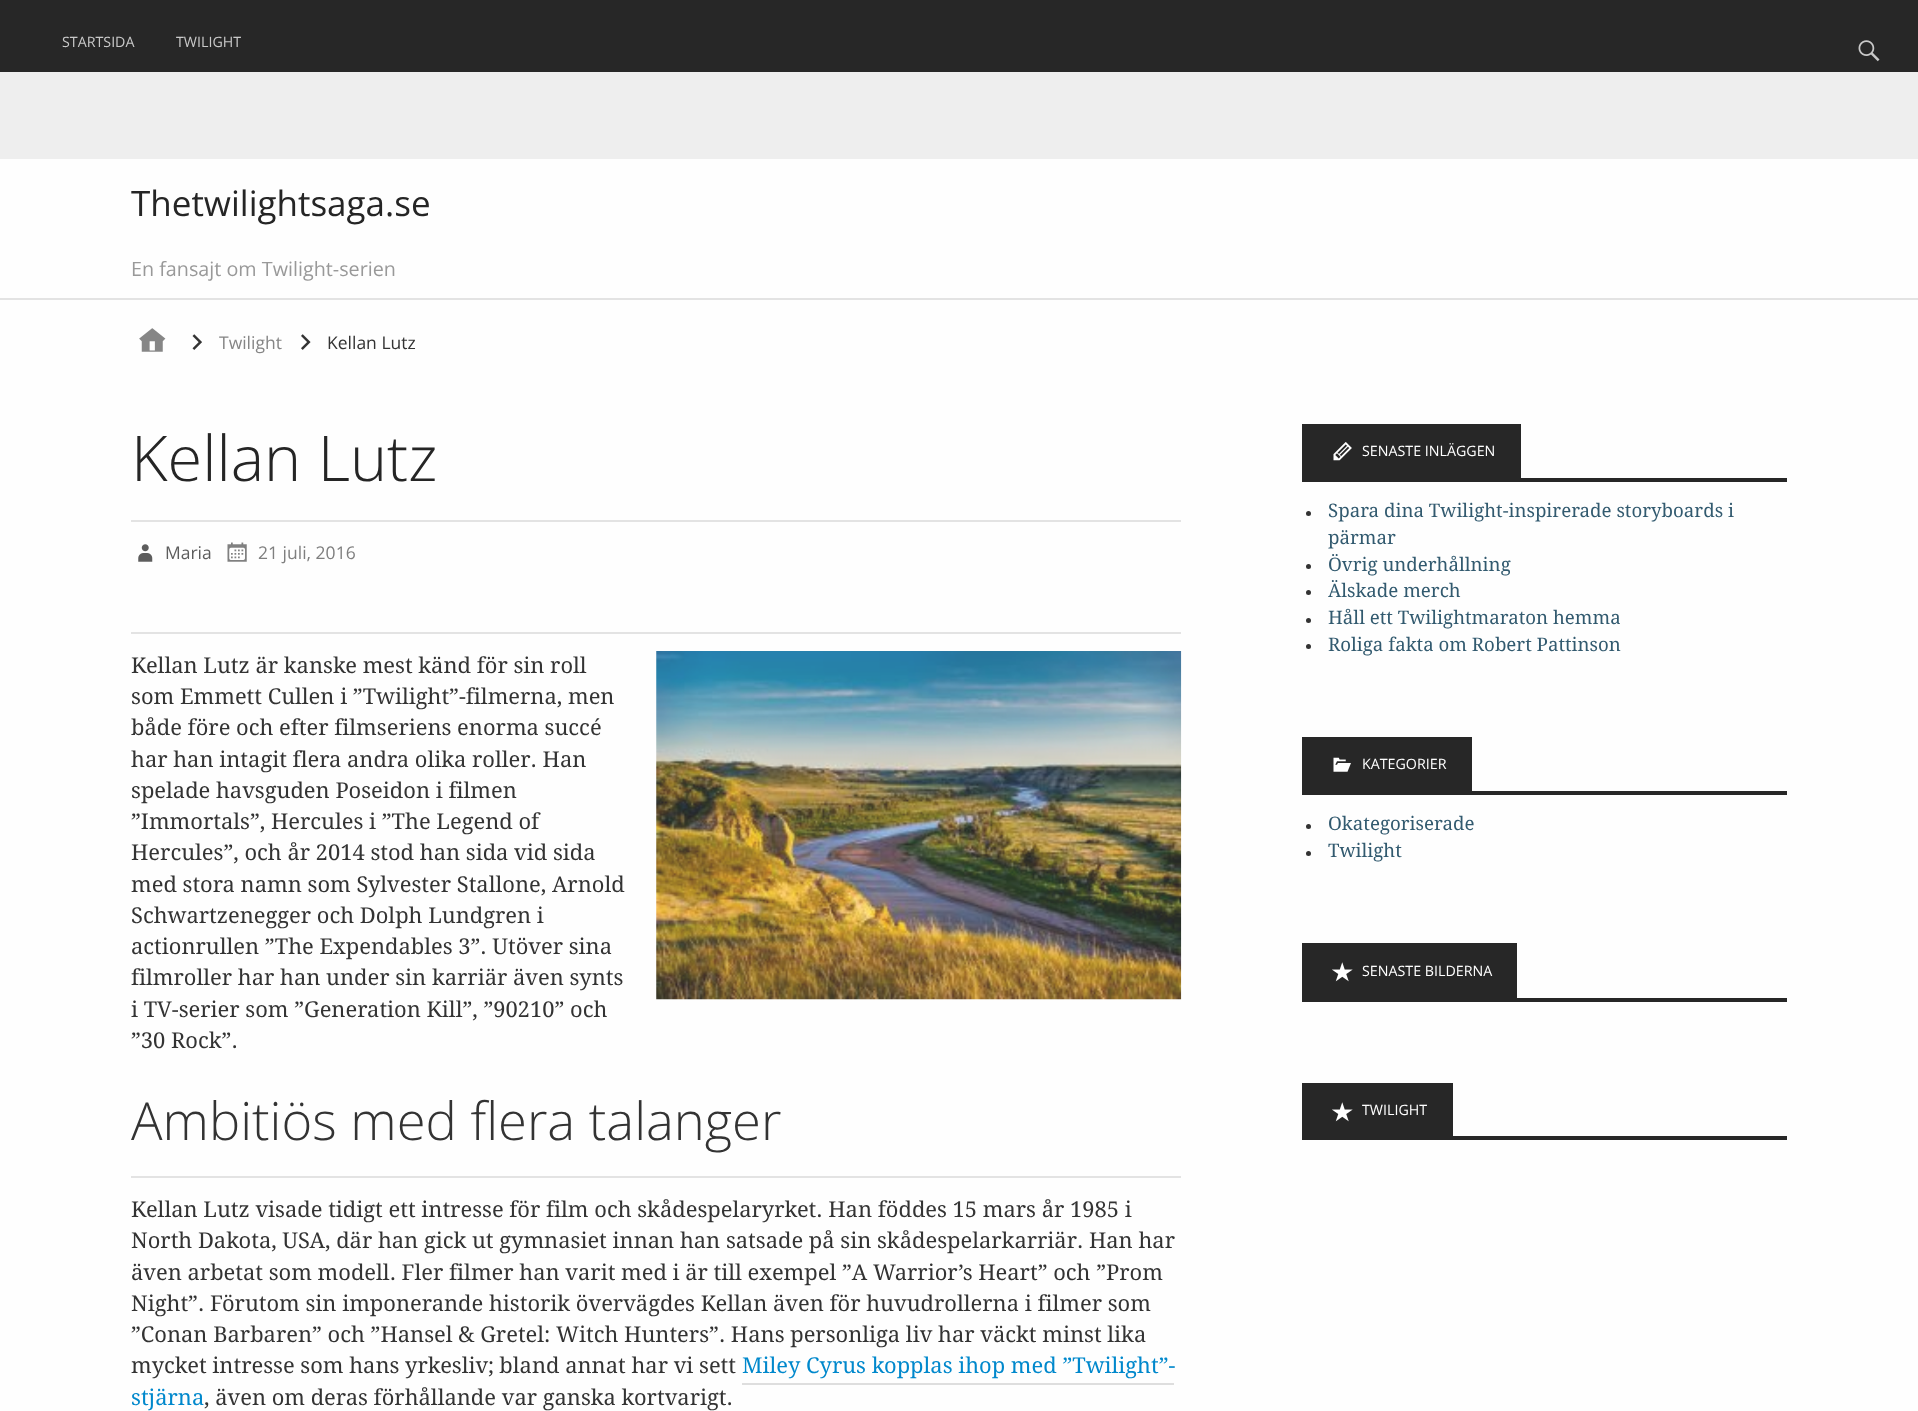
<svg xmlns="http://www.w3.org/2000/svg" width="1918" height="1411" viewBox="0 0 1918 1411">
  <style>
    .t1 { font: 14.25px Open Sans; fill: #c9c9c9; }
    .t2 { font: 35px Open Sans; fill: #252525; }
    .t3 { font: 19.75px Open Sans; fill: #999; }
    .t4 { font: 17.5px Open Sans; fill: #858585; }
    .t5 { font: 17.5px Open Sans; fill: #333; }
    .t6 { font: 300 63px Open Sans; fill: #252525; }
    .t7 { font: 17.5px Open Sans; fill: #5d5d5d; }
    .t8 { font: 17.5px Open Sans; fill: #7f7f7f; }
    .t9 { font: 21.9px Droid Serif; fill: #333; }
    .t10 { font: 300 52.5px Open Sans; fill: #333; }
    .t11 { font: 21.9px Droid Serif; fill: #08c; }
    .t12 { font: 14.25px Open Sans; fill: #fff; }
    .t13 { font: 18.7px Droid Serif; fill: #325a6f; }
  </style>
  <rect width="100%" height="100%" fill="#eee"/>
  <rect x="0" y="0" width="1918" height="72" fill="#272727"/>
  <text x="62" y="47" class="t1">STARTSIDA</text>
  <text x="176" y="47" class="t1">TWILIGHT</text>
  <image x="1858" y="40" width="22" height="22" href="images/1.png"/>
  <rect x="0" y="159" width="1918" height="1252" fill="#fefefe"/>
  <rect x="0" y="298" width="1918" height="2" fill="#e3e3e3"/>
  <text x="131" y="216" class="t2">Thetwilightsaga.se</text>
  <text x="131" y="276" class="t3">En fansajt om Twilight-serien</text>
  <image x="139" y="328" width="27" height="24" href="images/2.png"/>
  <image x="192" y="334" width="10" height="16" href="images/3.png"/>
  <text x="219" y="349" class="t4">Twilight</text>
  <image x="301" y="334" width="10" height="16" href="images/4.png"/>
  <text x="327" y="349" class="t5">Kellan Lutz</text>
  <rect x="131" y="520" width="1050" height="2" fill="#e3e3e3"/>
  <text x="131" y="481" class="t6">Kellan Lutz</text>
  <image x="138" y="544" width="15" height="18" href="images/5.png"/>
  <text x="165" y="559" class="t7">Maria</text>
  <image x="227" y="542" width="20" height="20" href="images/6.png"/>
  <text x="258" y="559" class="t8">21 juli, 2016</text>
  <rect x="131" y="632" width="1050" height="2" fill="#e3e3e3"/>
  <text x="131" y="673" class="t9">Kellan Lutz är kanske mest känd för sin roll</text>
  <text x="131" y="704" class="t9">som Emmett Cullen i ”Twilight”-filmerna, men</text>
  <text x="131" y="735" class="t9">både före och efter filmseriens enorma succé</text>
  <text x="131" y="767" class="t9">har han intagit flera andra olika roller. Han</text>
  <text x="131" y="798" class="t9">spelade havsguden Poseidon i filmen</text>
  <text x="131" y="829" class="t9">”Immortals”, Hercules i ”The Legend of</text>
  <text x="131" y="860" class="t9">Hercules”, och år 2014 stod han sida vid sida</text>
  <text x="131" y="892" class="t9">med stora namn som Sylvester Stallone, Arnold</text>
  <text x="131" y="923" class="t9">Schwartzenegger och Dolph Lundgren i</text>
  <text x="131" y="954" class="t9">actionrullen ”The Expendables 3”. Utöver sina</text>
  <text x="131" y="985" class="t9">filmroller har han under sin karriär även synts</text>
  <text x="131" y="1017" class="t9">i TV-serier som ”Generation Kill”, ”90210” och</text>
  <text x="131" y="1048" class="t9">”30 Rock”.</text>
  <image x="656" y="651" width="526" height="349" href="images/7.png"/>
  <rect x="131" y="1176" width="1050" height="2" fill="#e3e3e3"/>
  <text x="131" y="1140" class="t10">Ambitiös med flera talanger</text>
  <text x="131" y="1217" class="t9">Kellan Lutz visade tidigt ett intresse för film och skådespelaryrket. Han föddes 15 mars år 1985 i</text>
  <text x="131" y="1248" class="t9">North Dakota, USA, där han gick ut gymnasiet innan han satsade på sin skådespelarkarriär. Han har</text>
  <text x="131" y="1280" class="t9">även arbetat som modell. Fler filmer han varit med i är till exempel ”A Warrior’s Heart” och ”Prom</text>
  <text x="131" y="1311" class="t9">Night”. Förutom sin imponerande historik övervägdes Kellan även för huvudrollerna i filmer som</text>
  <text x="131" y="1342" class="t9">”Conan Barbaren” och ”Hansel &amp; Gretel: Witch Hunters”. Hans personliga liv har väckt minst lika</text>
  <text x="131" y="1373" class="t9">mycket intresse som hans yrkesliv; bland annat har vi sett</text>
  <text x="742" y="1373" class="t11">Miley Cyrus kopplas ihop med ”Twilight”-</text>
  <rect x="742" y="1383" width="432" height="2" fill="#dedede"/>
  <text x="131" y="1405" class="t11">stjärna</text>
  <text x="204" y="1405" class="t9">, även om deras förhållande var ganska kortvarigt.</text>
  <rect x="1302" y="478" width="485" height="4" fill="#272727"/>
  <rect x="1302" y="424" width="219" height="54" fill="#272727"/>
  <image x="1333" y="442" width="19" height="19" href="images/8.png"/>
  <text x="1362" y="456" class="t12">SENASTE INLÄGGEN</text>
  <circle cx="1308.5" cy="513.5" r="2.5" fill="#333"/>
  <text x="1328" y="517" class="t13">Spara dina Twilight-inspirerade storyboards i</text>
  <text x="1328" y="544" class="t13">pärmar</text>
  <circle cx="1308.5" cy="566.5" r="2.5" fill="#333"/>
  <text x="1328" y="571" class="t13">Övrig underhållning</text>
  <circle cx="1308.5" cy="592.5" r="2.5" fill="#333"/>
  <text x="1328" y="597" class="t13">Älskade merch</text>
  <circle cx="1308.5" cy="620.5" r="2.5" fill="#333"/>
  <text x="1328" y="624" class="t13">Håll ett Twilightmaraton hemma</text>
  <circle cx="1308.5" cy="646.5" r="2.5" fill="#333"/>
  <text x="1328" y="651" class="t13">Roliga fakta om Robert Pattinson</text>
  <rect x="1302" y="791" width="485" height="4" fill="#272727"/>
  <rect x="1302" y="737" width="170" height="54" fill="#272727"/>
  <image x="1333" y="757" width="18" height="15" href="images/9.png"/>
  <text x="1362" y="769" class="t12">KATEGORIER</text>
  <circle cx="1308.5" cy="826.5" r="2.5" fill="#333"/>
  <text x="1328" y="830" class="t13">Okategoriserade</text>
  <circle cx="1308.5" cy="853.5" r="2.5" fill="#333"/>
  <text x="1328" y="857" class="t13">Twilight</text>
  <rect x="1302" y="998" width="485" height="4" fill="#272727"/>
  <rect x="1302" y="943" width="215" height="55" fill="#272727"/>
  <image x="1332" y="962" width="21" height="20" href="images/10.png"/>
  <text x="1362" y="976" class="t12">SENASTE BILDERNA</text>
  <rect x="1302" y="1136" width="485" height="4" fill="#272727"/>
  <rect x="1302" y="1083" width="151" height="53" fill="#272727"/>
  <image x="1332" y="1102" width="21" height="20" href="images/10.png"/>
  <text x="1362" y="1115" class="t12">TWILIGHT</text>
</svg>
